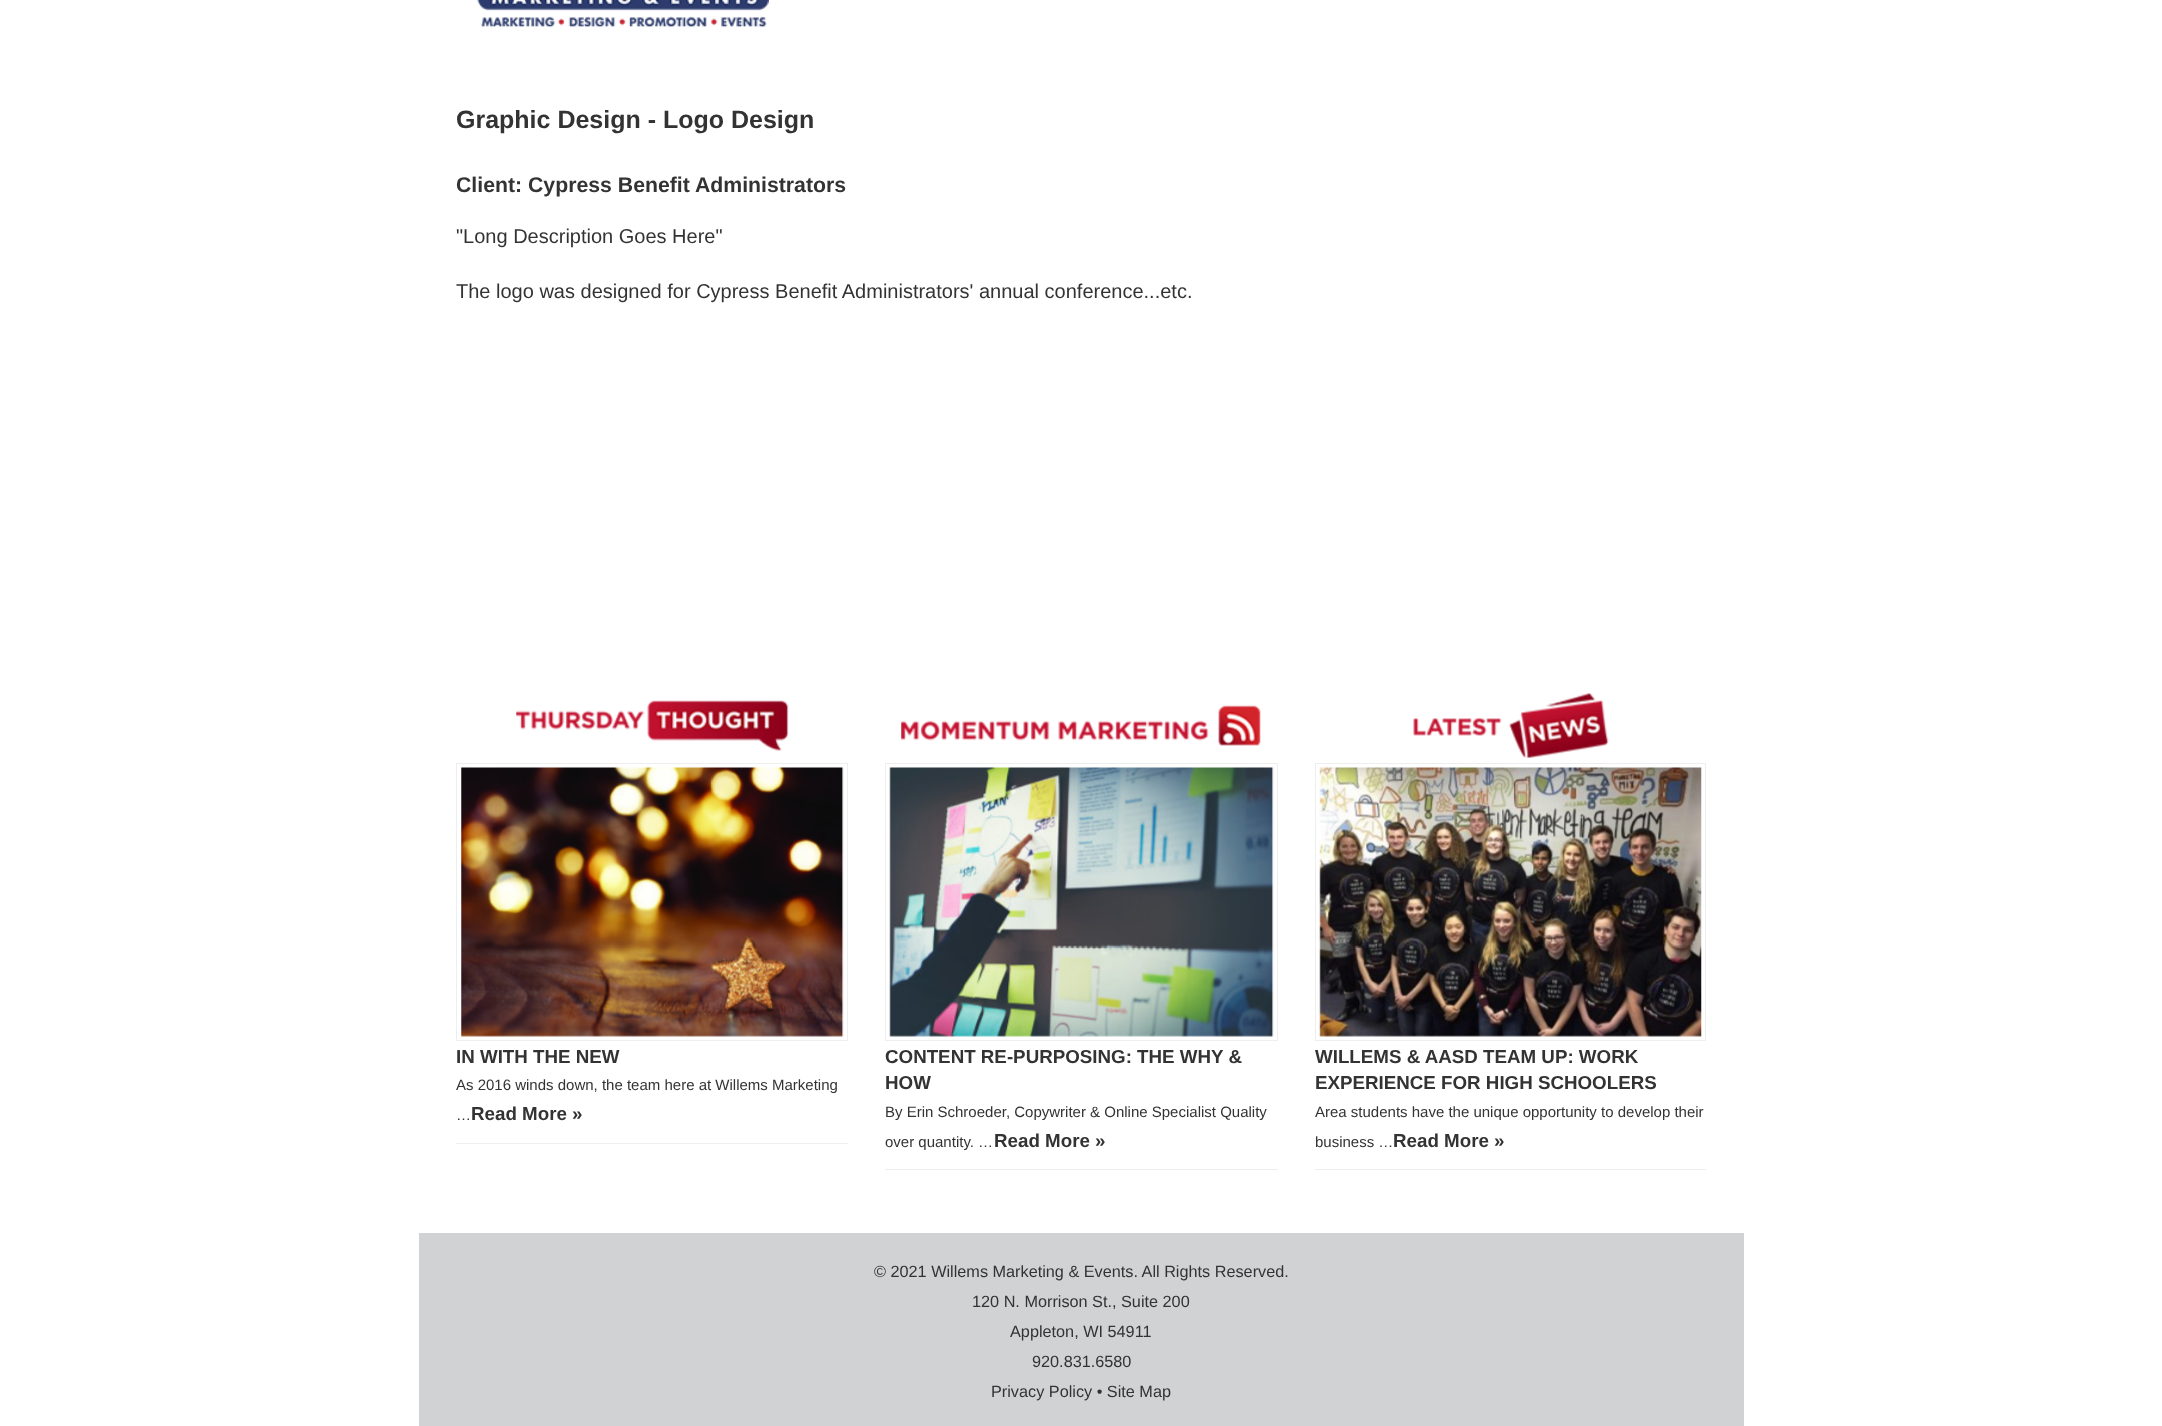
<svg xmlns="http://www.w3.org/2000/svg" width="2162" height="1426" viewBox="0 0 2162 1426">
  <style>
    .t1 { font: bold 25px Liberation Sans; fill: #333; }
    .t2 { font: bold 21.25px Liberation Sans; fill: #333; }
    .t3 { font: 20px Liberation Sans; fill: #333; }
    .t4 { font: bold 18.75px Liberation Sans; fill: #333; }
    .t5 { font: 15px Liberation Sans; fill: #333; }
    .t6 { font: 16.25px Liberation Sans; fill: #333; }
  </style>
  <rect width="100%" height="100%" fill="#fff"/>
  <image x="477" y="0" width="292" height="28" href="images/1.png"/>
  <text x="456" y="128" class="t1">Graphic Design - Logo Design</text>
  <text x="456" y="192" class="t2">Client: Cypress Benefit Administrators</text>
  <text x="456" y="243" class="t3">"Long Description Goes Here"</text>
  <text x="456" y="298" class="t3">The logo was designed for Cypress Benefit Administrators' annual conference...etc.</text>
  <image x="516" y="700" width="273" height="51" href="images/2.png"/>
  <rect x="456" y="1143" width="392" height="1" fill="#eee"/>
  <rect x="456.5" y="763.5" width="391" height="277" fill="none" stroke="#eee"/>
  <image x="461" y="767" width="383" height="270" href="images/3.png"/>
  <text x="456" y="1063" class="t4">IN WITH THE NEW</text>
  <text x="456" y="1090" class="t5">As 2016 winds down, the team here at Willems Marketing</text>
  <text x="456" y="1120" class="t5">…</text>
  <text x="471" y="1120" class="t4">Read More »</text>
  <image x="901" y="705" width="360" height="41" href="images/4.png"/>
  <rect x="885" y="1169" width="393" height="1" fill="#eee"/>
  <rect x="885.5" y="763.5" width="392" height="277" fill="none" stroke="#eee"/>
  <image x="889" y="767" width="385" height="270" href="images/5.png"/>
  <text x="885" y="1063" class="t4">CONTENT RE-PURPOSING: THE WHY &amp;</text>
  <text x="885" y="1089" class="t4">HOW</text>
  <text x="885" y="1117" class="t5">By Erin Schroeder, Copywriter &amp; Online Specialist Quality</text>
  <text x="885" y="1147" class="t5">over quantity. …</text>
  <text x="994" y="1147" class="t4">Read More »</text>
  <image x="1413" y="693" width="196" height="65" href="images/6.png"/>
  <rect x="1315" y="1169" width="391" height="1" fill="#eee"/>
  <rect x="1315.5" y="763.5" width="390" height="277" fill="none" stroke="#eee"/>
  <image x="1319" y="767" width="383" height="270" href="images/7.png"/>
  <text x="1315" y="1063" class="t4">WILLEMS &amp; AASD TEAM UP: WORK</text>
  <text x="1315" y="1089" class="t4">EXPERIENCE FOR HIGH SCHOOLERS</text>
  <text x="1315" y="1117" class="t5">Area students have the unique opportunity to develop their</text>
  <text x="1315" y="1147" class="t5">business …</text>
  <text x="1393" y="1147" class="t4">Read More »</text>
  <rect x="419" y="1233" width="1325" height="193" fill="#d1d2d4"/>
  <text x="874" y="1277" class="t6">© 2021 Willems Marketing &amp; Events. All Rights Reserved.</text>
  <text x="972" y="1307" class="t6">120 N. Morrison St., Suite 200</text>
  <text x="1010" y="1337" class="t6">Appleton, WI 54911</text>
  <text x="1032" y="1367" class="t6">920.831.6580</text>
  <text x="991" y="1397" class="t6">Privacy Policy • Site Map</text>
</svg>
